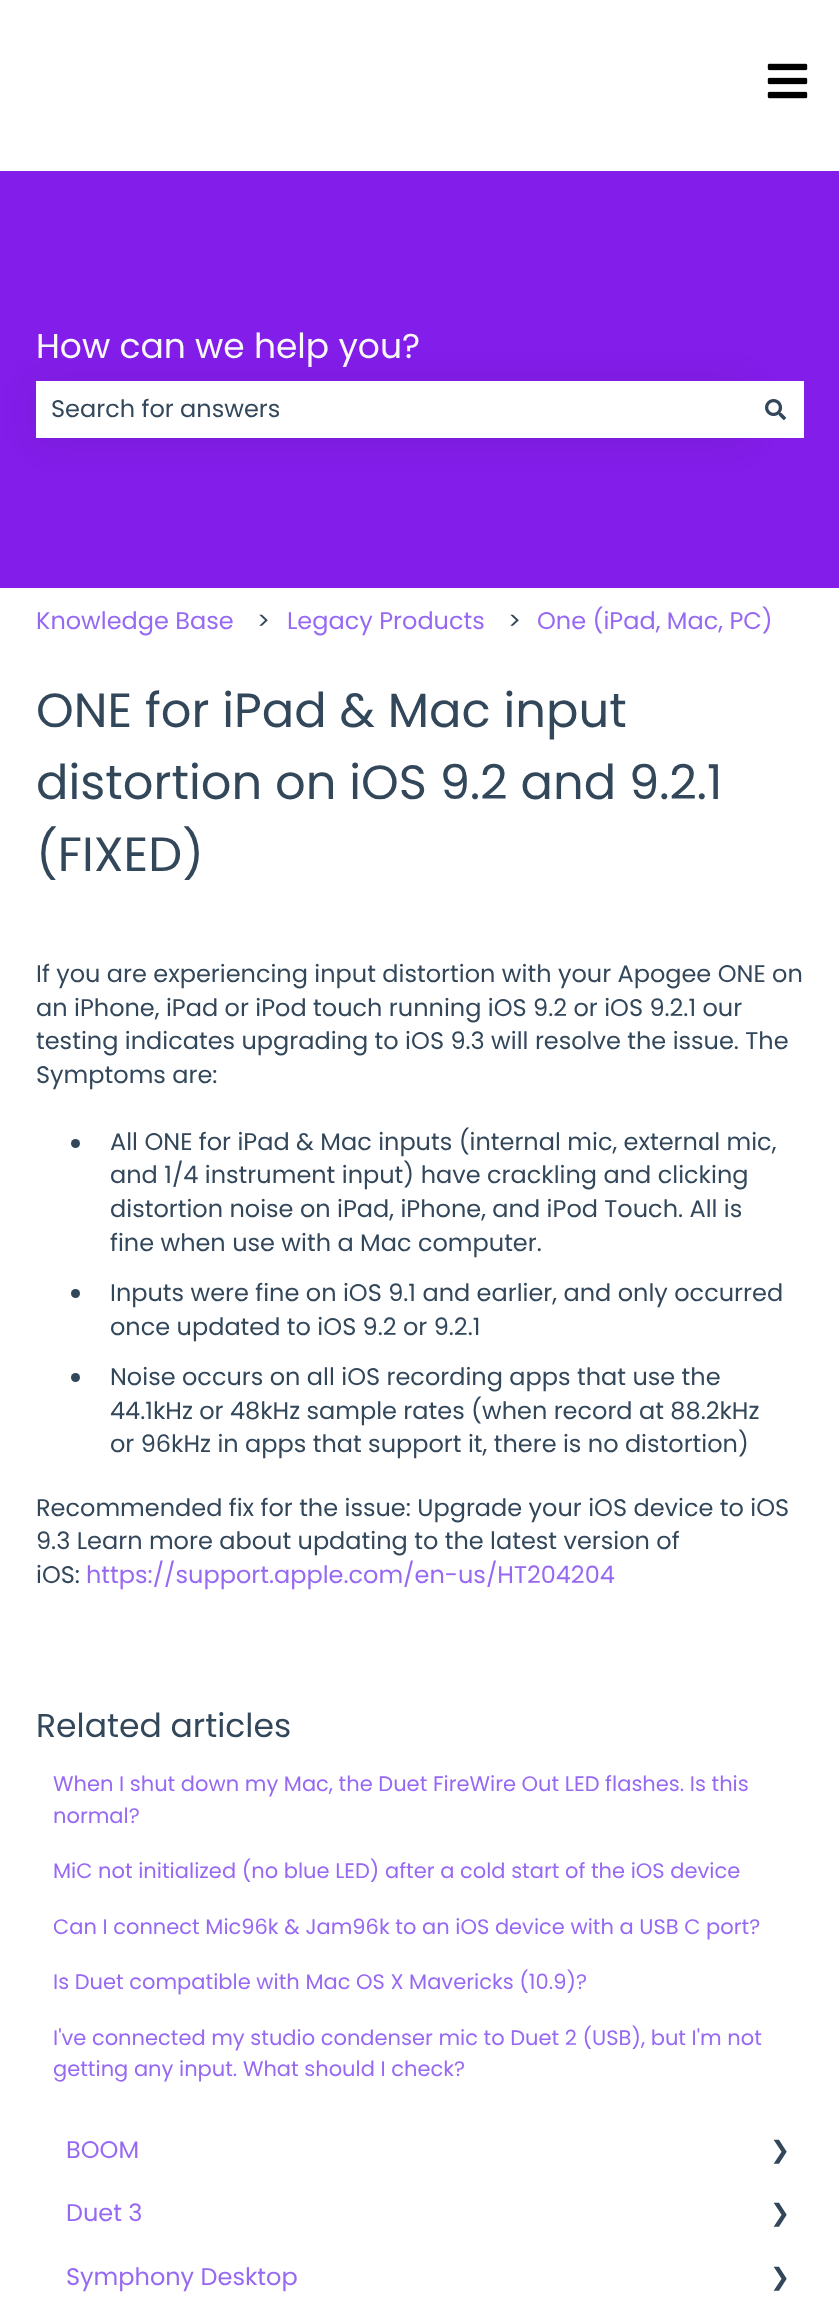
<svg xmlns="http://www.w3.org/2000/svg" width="839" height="2313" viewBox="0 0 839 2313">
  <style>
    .t1 { font: 34.5px Poppins; fill: #f8f8f8; }
    .t2 { font: 24px Poppins; fill: #33475b; }
    .t3 { font: 24px Poppins; fill: #9769f3; }
    .t4 { font: 48px Poppins; fill: #33475b; }
    .t5 { font: 33px Poppins; fill: #33475b; }
    .t6 { font: 21px Poppins; fill: #9769f3; }
    .t7 { font: 24px DejaVu Sans; fill: #33475b; }
  </style>
  <rect width="100%" height="100%" fill="#fff"/>
  <image x="767" y="63" width="41" height="36" href="images/1.png"/>
  <rect x="0" y="171" width="839" height="417" fill="#831de9"/>
  <text x="36" y="358" class="t1">How can we help you?</text>
  <rect x="36" y="383" width="711" height="57" fill="#00000014" filter="blur(18px)"/>
  <rect x="36" y="381" width="768" height="57" fill="#fff"/>
  <text x="51" y="417" class="t2">Search for answers</text>
  <image x="765" y="399" width="21" height="21" href="images/2.png"/>
  <text x="36" y="629" class="t3">Knowledge Base</text>
  <text x="257" y="629" class="t2">&gt;</text>
  <text x="287" y="629" class="t3">Legacy Products</text>
  <text x="508" y="629" class="t2">&gt;</text>
  <text x="537" y="629" class="t3">One (iPad, Mac, PC)</text>
  <text x="36" y="727" class="t4">ONE for iPad &amp; Mac input</text>
  <text x="36" y="799" class="t4">distortion on iOS 9.2 and 9.2.1</text>
  <text x="36" y="871" class="t4">(FIXED)</text>
  <text x="36" y="982" class="t2">If you are experiencing input distortion with your Apogee ONE on</text>
  <text x="36" y="1016" class="t2">an iPhone, iPad or iPod touch running iOS 9.2 or iOS 9.2.1 our</text>
  <text x="36" y="1049" class="t2">testing indicates upgrading to iOS 9.3 will resolve the issue. The</text>
  <text x="36" y="1083" class="t2">Symptoms are:</text>
  <circle cx="75.5" cy="1143.5" r="4.5" fill="#33475b"/>
  <text x="110" y="1150" class="t2">All ONE for iPad &amp; Mac inputs (internal mic, external mic,</text>
  <text x="110" y="1183" class="t2">and 1/4 instrument input) have crackling and clicking</text>
  <text x="110" y="1217" class="t2">distortion noise on iPad, iPhone, and iPod Touch. All is</text>
  <text x="110" y="1251" class="t2">fine when use with a Mac computer.</text>
  <circle cx="75.5" cy="1293.5" r="4.5" fill="#33475b"/>
  <text x="110" y="1301" class="t2">Inputs were fine on iOS 9.1 and earlier, and only occurred</text>
  <text x="110" y="1335" class="t2">once updated to iOS 9.2 or 9.2.1</text>
  <circle cx="75.5" cy="1377.5" r="4.5" fill="#33475b"/>
  <text x="110" y="1385" class="t2">Noise occurs on all iOS recording apps that use the</text>
  <text x="110" y="1419" class="t2">44.1kHz or 48kHz sample rates (when record at 88.2kHz</text>
  <text x="110" y="1452" class="t2">or 96kHz in apps that support it, there is no distortion)</text>
  <text x="36" y="1516" class="t2">Recommended fix for the issue: Upgrade your iOS device to iOS</text>
  <text x="36" y="1549" class="t2">9.3 Learn more about updating to the latest version of</text>
  <text x="36" y="1583" class="t2">iOS:</text>
  <text x="86" y="1583" class="t3">https://support.apple.com/en-us/HT204204</text>
  <text x="36" y="1737" class="t5">Related articles</text>
  <text x="53" y="1791" class="t6">When I shut down my Mac, the Duet FireWire Out LED flashes. Is this</text>
  <text x="53" y="1823" class="t6">normal?</text>
  <text x="53" y="1878" class="t6">MiC not initialized (no blue LED) after a cold start of the iOS device</text>
  <text x="53" y="1934" class="t6">Can I connect Mic96k &amp; Jam96k to an iOS device with a USB C port?</text>
  <text x="53" y="1989" class="t6">Is Duet compatible with Mac OS X Mavericks (10.9)?</text>
  <text x="53" y="2045" class="t6">I've connected my studio condenser mic to Duet 2 (USB), but I'm not</text>
  <text x="53" y="2076" class="t6">getting any input. What should I check?</text>
  <text x="66" y="2158" class="t3">BOOM</text>
  <text x="770" y="2158" class="t7">❯</text>
  <text x="66" y="2221" class="t3">Duet 3</text>
  <text x="770" y="2221" class="t7">❯</text>
  <text x="66" y="2285" class="t3">Symphony Desktop</text>
  <text x="770" y="2285" class="t7">❯</text>
</svg>
